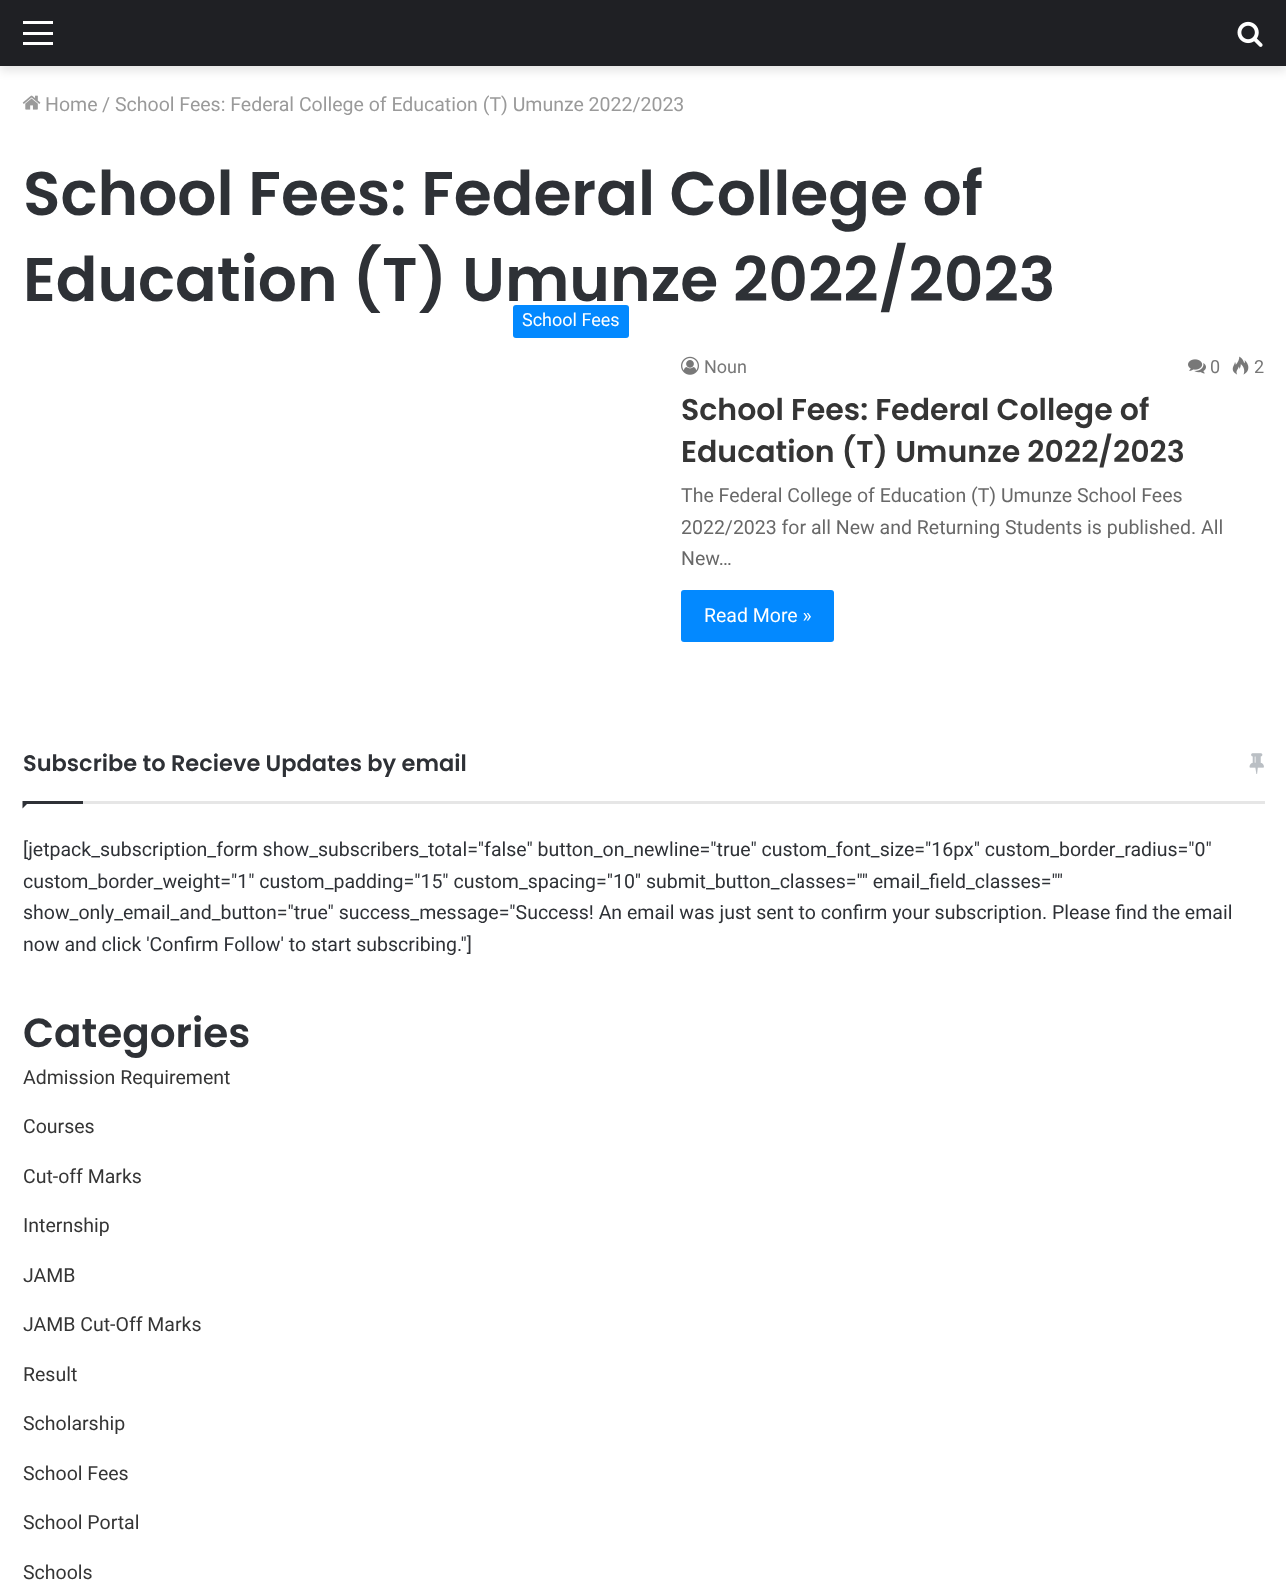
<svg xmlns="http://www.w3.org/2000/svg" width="1286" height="1584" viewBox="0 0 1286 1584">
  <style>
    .t1 { font: 19.5px Roboto; fill: #9a9a9a; }
    .t2 { font: 600 61.5px Poppins; fill: #2e3136; }
    .t3 { font: 18px Roboto; fill: #fff; }
    .t4 { font: 18px Roboto; fill: #777; }
    .t5 { font: 600 30px Poppins; fill: #353535; }
    .t6 { font: 19.5px Roboto; fill: #686868; }
    .t7 { font: 19.5px Roboto; fill: #fff; }
    .t8 { font: 600 22.5px Poppins; fill: #2e3136; }
    .t9 { font: 19.5px Roboto; fill: #2e3136; }
    .t10 { font: 600 40.5px Poppins; fill: #2e3136; }
    .t11 { font: 19.5px Roboto; fill: #353535; }
  </style>
  <rect width="100%" height="100%" fill="#fff"/>
  <rect x="0" y="5" width="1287" height="66" fill="#0000001a" filter="blur(5px)"/>
  <rect x="0" y="0" width="1286" height="66" fill="#1f2024"/>
  <rect x="23" y="32" width="30" height="3" fill="#fff"/>
  <rect x="23" y="21" width="30" height="3" fill="#fff"/>
  <rect x="23" y="42" width="30" height="3" fill="#fff"/>
  <image x="1237" y="21" width="26" height="26" href="images/1.png"/>
  <image x="22" y="95" width="19" height="15" href="images/2.png"/>
  <text x="45" y="111" class="t1">Home</text>
  <text x="102" y="111" class="t1">/</text>
  <text x="115" y="111" class="t1">School Fees: Federal College of Education (T) Umunze 2022/2023</text>
  <text x="23" y="215" class="t2">School Fees: Federal College of</text>
  <text x="23" y="301" class="t2">Education (T) Umunze 2022/2023</text>
  <rect x="513" y="305" width="116" height="33" rx="3" fill="#0389ff"/>
  <text x="522" y="326" class="t3">School Fees</text>
  <image x="681" y="356" width="18" height="19" href="images/3.png"/>
  <text x="704" y="373" class="t4">Noun</text>
  <image x="1188" y="359" width="18" height="15" href="images/4.png"/>
  <text x="1210" y="373" class="t4">0</text>
  <image x="1232" y="356" width="17" height="19" href="images/5.png"/>
  <text x="1254" y="373" class="t4">2</text>
  <text x="681" y="420" class="t5">School Fees: Federal College of</text>
  <text x="681" y="462" class="t5">Education (T) Umunze 2022/2023</text>
  <text x="681" y="502" class="t6">The Federal College of Education (T) Umunze School Fees</text>
  <text x="681" y="534" class="t6">2022/2023 for all New and Returning Students is published. All</text>
  <text x="681" y="565" class="t6">New…</text>
  <rect x="681" y="590" width="153" height="52" rx="3" fill="#0389ff"/>
  <text x="704" y="622" class="t7">Read More »</text>
  <rect x="83" y="801" width="1182" height="3" fill="#e6e6e6"/>
  <text x="23" y="771" class="t8">Subscribe to Recieve Updates by email</text>
  <image x="1249" y="753" width="15" height="21" href="images/6.png"/>
  <path d="M22.5 801H30L22.5 808.5Z" fill="#2e3136"/>
  <rect x="23" y="801" width="60" height="3" fill="#2e3136"/>
  <text x="23" y="856" class="t9">[jetpack_subscription_form show_subscribers_total="false" button_on_newline="true" custom_font_size="16px" custom_border_radius="0"</text>
  <text x="23" y="888" class="t9">custom_border_weight="1" custom_padding="15" custom_spacing="10" submit_button_classes="" email_field_classes=""</text>
  <text x="23" y="919" class="t9">show_only_email_and_button="true" success_message="Success! An email was just sent to confirm your subscription. Please find the email</text>
  <text x="23" y="951" class="t9">now and click 'Confirm Follow' to start subscribing."]</text>
  <text x="23" y="1047" class="t10">Categories</text>
  <text x="23" y="1084" class="t11">Admission Requirement</text>
  <text x="23" y="1133" class="t11">Courses</text>
  <text x="23" y="1183" class="t11">Cut-off Marks</text>
  <text x="23" y="1232" class="t11">Internship</text>
  <text x="23" y="1282" class="t11">JAMB</text>
  <text x="23" y="1331" class="t11">JAMB Cut-Off Marks</text>
  <text x="23" y="1381" class="t11">Result</text>
  <text x="23" y="1430" class="t11">Scholarship</text>
  <text x="23" y="1480" class="t11">School Fees</text>
  <text x="23" y="1529" class="t11">School Portal</text>
  <text x="23" y="1579" class="t11">Schools</text>
</svg>
